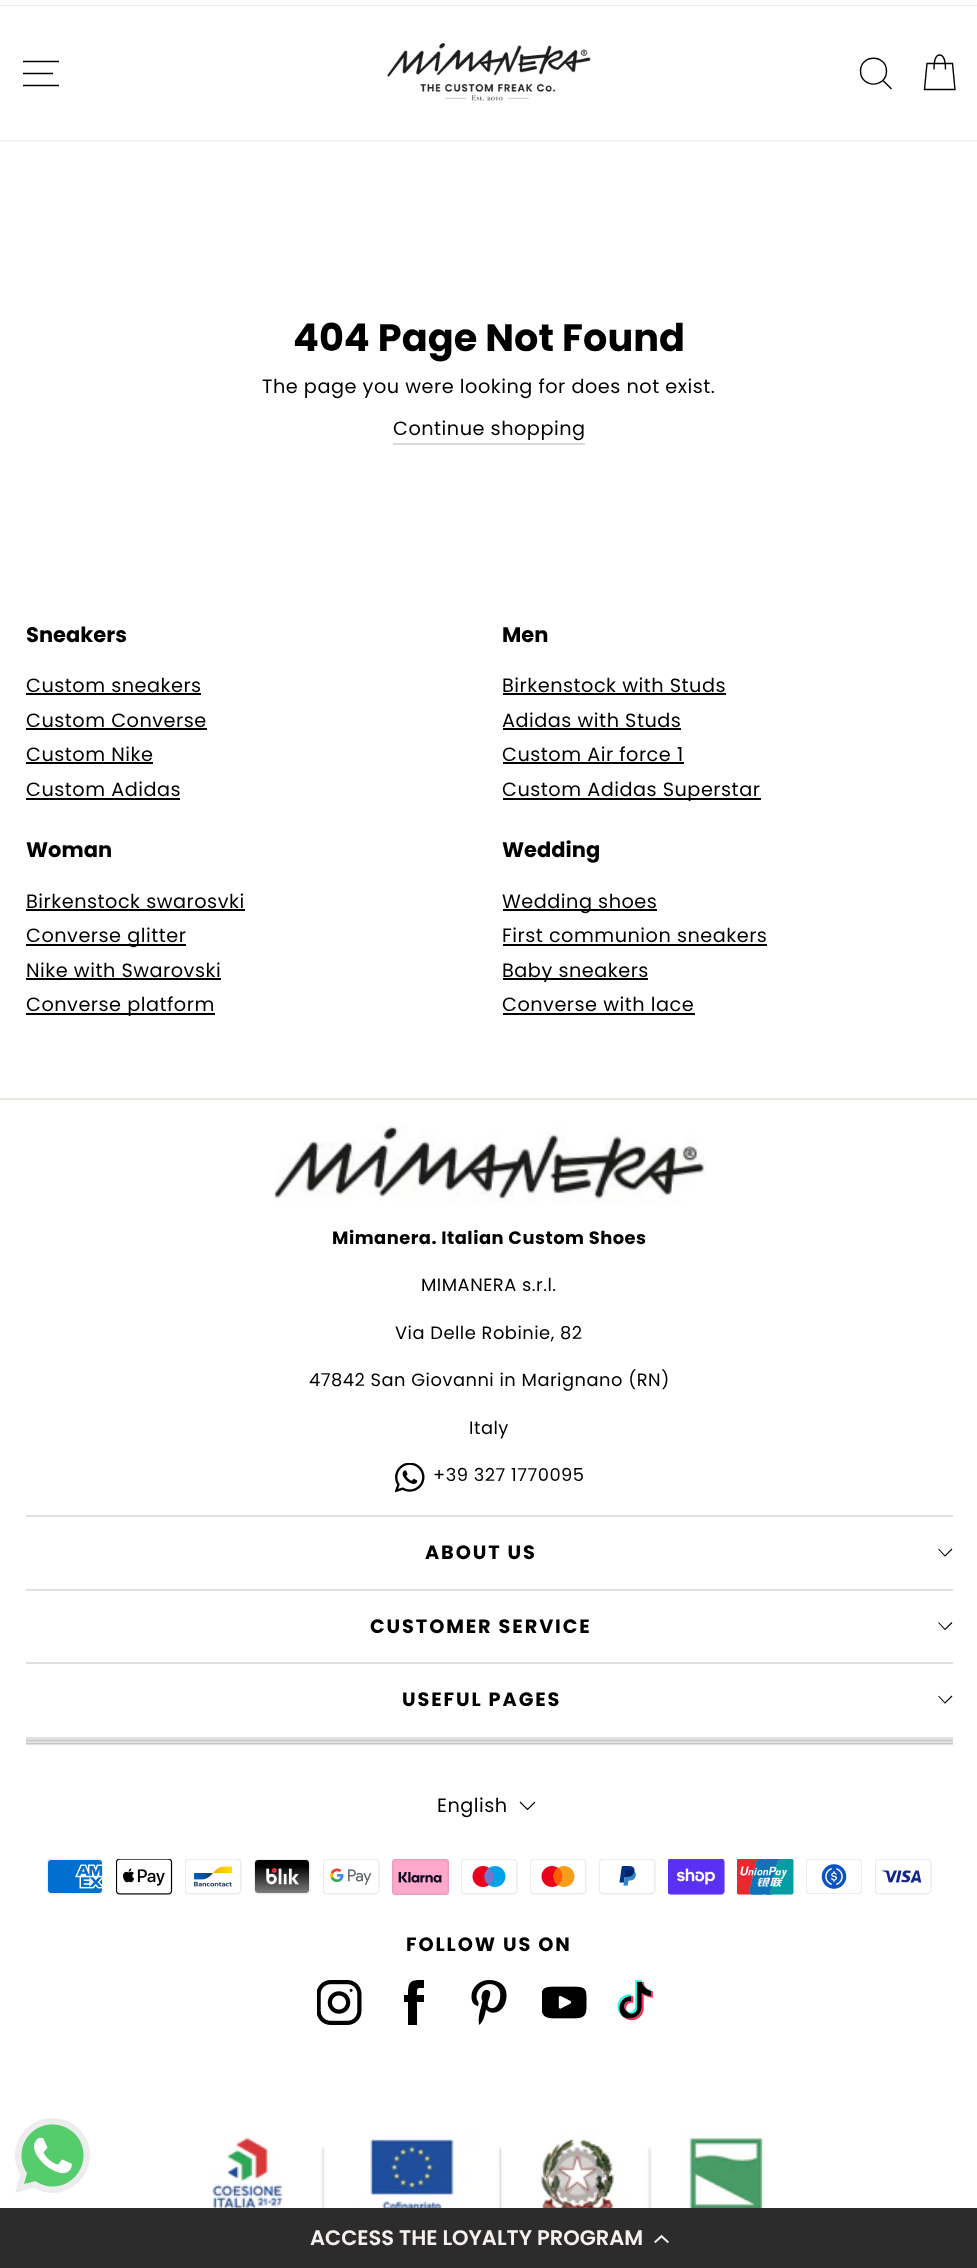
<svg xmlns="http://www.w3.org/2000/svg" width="977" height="2268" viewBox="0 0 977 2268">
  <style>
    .t1 { font: bold 38.25px Poppins; fill: #000; }
    .t2 { font: 19.3px Poppins; letter-spacing: 0.5px; fill: #000; }
    .t3 { font: bold 21px Poppins; fill: #000; }
    .t4 { font: bold 17.85px Poppins; letter-spacing: 0.5px; fill: #000; }
    .t5 { font: 17.85px Poppins; letter-spacing: 0.5px; fill: #000; }
    .t6 { font: bold 19.3px Poppins; letter-spacing: 1.9px; fill: #000; }
    .t7 { font: 600 21px Poppins; fill: #f6f1ee; }
  </style>
  <rect width="100%" height="100%" fill="#fff"/>
  <rect x="26" y="1744" width="927" height="1" fill="#e0e0e0"/>
  <rect x="26" y="1741" width="927" height="2" fill="#e0e0e0"/>
  <rect x="0" y="6" width="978" height="134" fill="#00000033" filter="blur(1px)"/>
  <rect x="0" y="6" width="977" height="134" fill="#fff"/>
  <path d="M23 61.5H59M23 73.5H53M23 85.5H59" fill="none" stroke="#000" stroke-width="1.4"/>
  <image x="387" y="42" width="204" height="59" href="images/1.png"/>
  <path d="M886.5 71C886.5 88.5 860.5 88.5 860.5 71C860.5 54 886.5 54 886.5 71ZM891.5 89L883 80.5" fill="none" stroke="#000" stroke-width="1.4"/>
  <path d="M934 69.5C934 58 936.5 55 939.5 55C943 55 945.5 58 945.5 69.5M927 63.5H952.5L955 89.5H924.5Z" fill="none" stroke="#000" stroke-width="1.4"/>
  <text x="293" y="351" class="t1">404 Page Not Found</text>
  <text x="262" y="393" class="t2">The page you were looking for does not exist.</text>
  <rect x="393" y="443" width="192" height="2" fill="#d9d9d9"/>
  <text x="393" y="435" class="t2">Continue shopping</text>
  <text x="26" y="642" class="t3">Sneakers</text>
  <text x="26" y="692" class="t2">Custom sneakers</text>
  <rect x="26" y="693" width="175" height="2" fill="#000"/>
  <text x="26" y="727" class="t2">Custom Converse</text>
  <rect x="26" y="728" width="181" height="2" fill="#000"/>
  <text x="26" y="761" class="t2">Custom Nike</text>
  <rect x="26" y="762" width="127" height="2" fill="#000"/>
  <text x="26" y="796" class="t2">Custom Adidas</text>
  <rect x="26" y="798" width="154" height="2" fill="#000"/>
  <text x="502" y="642" class="t3">Men</text>
  <text x="502" y="692" class="t2">Birkenstock with Studs</text>
  <rect x="503" y="693" width="223" height="2" fill="#000"/>
  <text x="502" y="727" class="t2">Adidas with Studs</text>
  <rect x="503" y="728" width="178" height="2" fill="#000"/>
  <text x="502" y="761" class="t2">Custom Air force 1</text>
  <rect x="503" y="762" width="181" height="2" fill="#000"/>
  <rect x="503" y="798" width="258" height="2" fill="#000"/>
  <text x="502" y="796" class="t2">Custom Adidas Superstar</text>
  <text x="26" y="857" class="t3">Woman</text>
  <text x="26" y="908" class="t2">Birkenstock swarosvki</text>
  <rect x="26" y="909" width="219" height="2" fill="#000"/>
  <rect x="26" y="944" width="160" height="2" fill="#000"/>
  <text x="26" y="942" class="t2">Converse glitter</text>
  <text x="26" y="977" class="t2">Nike with Swarovski</text>
  <rect x="26" y="978" width="195" height="2" fill="#000"/>
  <rect x="26" y="1013" width="189" height="2" fill="#000"/>
  <text x="26" y="1011" class="t2">Converse platform</text>
  <text x="502" y="857" class="t3">Wedding</text>
  <rect x="503" y="909" width="154" height="2" fill="#000"/>
  <text x="502" y="908" class="t2">Wedding shoes</text>
  <text x="502" y="942" class="t2">First communion sneakers</text>
  <rect x="503" y="944" width="264" height="2" fill="#000"/>
  <rect x="503" y="978" width="145" height="2" fill="#000"/>
  <text x="502" y="977" class="t2">Baby sneakers</text>
  <text x="502" y="1011" class="t2">Converse with lace</text>
  <rect x="503" y="1013" width="192" height="2" fill="#000"/>
  <rect x="0" y="1098" width="977" height="2" fill="#e8e8e1"/>
  <image x="273" y="1125" width="433" height="78" href="images/2.png"/>
  <text x="332" y="1244" class="t4">Mimanera. Italian Custom Shoes</text>
  <text x="421" y="1291" class="t5">MIMANERA s.r.l.</text>
  <text x="395" y="1339" class="t5">Via Delle Robinie, 82</text>
  <text x="309" y="1386" class="t5">47842 San Giovanni in Marignano (RN)</text>
  <text x="469" y="1434" class="t5">Italy</text>
  <image x="395" y="1463" width="30" height="30" href="images/3.png"/>
  <text x="433" y="1481" class="t5">+39 327 1770095</text>
  <rect x="26" y="1515" width="927" height="2" fill="#e0e0e0"/>
  <text x="425" y="1559" class="t6">ABOUT US</text>
  <path d="M938.5 1549L945 1556L952 1549" fill="none" stroke="#000" stroke-width="1.1"/>
  <rect x="26" y="1589" width="927" height="2" fill="#e0e0e0"/>
  <text x="370" y="1633" class="t6">CUSTOMER SERVICE</text>
  <path d="M938.5 1622.5L945 1629.5L952 1622.5" fill="none" stroke="#000" stroke-width="1.1"/>
  <rect x="26" y="1662" width="927" height="2" fill="#e0e0e0"/>
  <text x="402" y="1706" class="t6">USEFUL PAGES</text>
  <path d="M938.5 1696L945 1703L952 1696" fill="none" stroke="#000" stroke-width="1.1"/>
  <rect x="26" y="1737" width="927" height="3" fill="#e0e0e0"/>
  <rect x="26" y="1740" width="927" height="1" fill="#c5c5c5"/>
  <rect x="26" y="1743" width="927" height="1" fill="#c5c5c5"/>
  <text x="437" y="1812" class="t2">English</text>
  <path d="M520 1802L527.5 1809.5L535 1802" fill="none" stroke="#000" stroke-width="1.2"/>
  <image x="47" y="1859" width="57" height="36" href="images/4.png"/>
  <image x="116" y="1859" width="57" height="36" href="images/5.png"/>
  <image x="185" y="1859" width="57" height="36" href="images/6.png"/>
  <image x="254" y="1859" width="57" height="36" href="images/7.png"/>
  <image x="323" y="1859" width="57" height="36" href="images/8.png"/>
  <image x="392" y="1859" width="57" height="36" href="images/9.png"/>
  <image x="461" y="1859" width="57" height="36" href="images/10.png"/>
  <image x="530" y="1859" width="57" height="36" href="images/11.png"/>
  <image x="599" y="1859" width="57" height="36" href="images/12.png"/>
  <image x="668" y="1859" width="57" height="36" href="images/13.png"/>
  <image x="737" y="1859" width="57" height="36" href="images/14.png"/>
  <image x="806" y="1859" width="56" height="35" href="images/15.png"/>
  <image x="875" y="1859" width="57" height="36" href="images/16.png"/>
  <text x="406" y="1951" class="t6">FOLLOW US ON</text>
  <image x="317" y="1980" width="45" height="45" href="images/17.png"/>
  <path d="M417 1995C417 1987 417 1988 424 1988V1980C411 1980 408 1980 408 1995H404V2002H408V2025H417V2002H424V1995Z" fill="#000"/>
  <image x="471" y="1980" width="36" height="45" href="images/18.png"/>
  <image x="542" y="1986" width="45" height="33" href="images/19.png"/>
  <image x="617" y="1980" width="36" height="41" href="images/20.png"/>
  <image x="212" y="2134" width="553" height="74" href="images/21.png"/>
  <image x="15" y="2118" width="75" height="75" href="images/22.png"/>
  <rect x="0" y="2208" width="977" height="60" fill="#2c2c2c"/>
  <text x="310" y="2245" class="t7">ACCESS THE LOYALTY PROGRAM</text>
  <image x="654" y="2234" width="15" height="10" href="images/23.png"/>
</svg>
